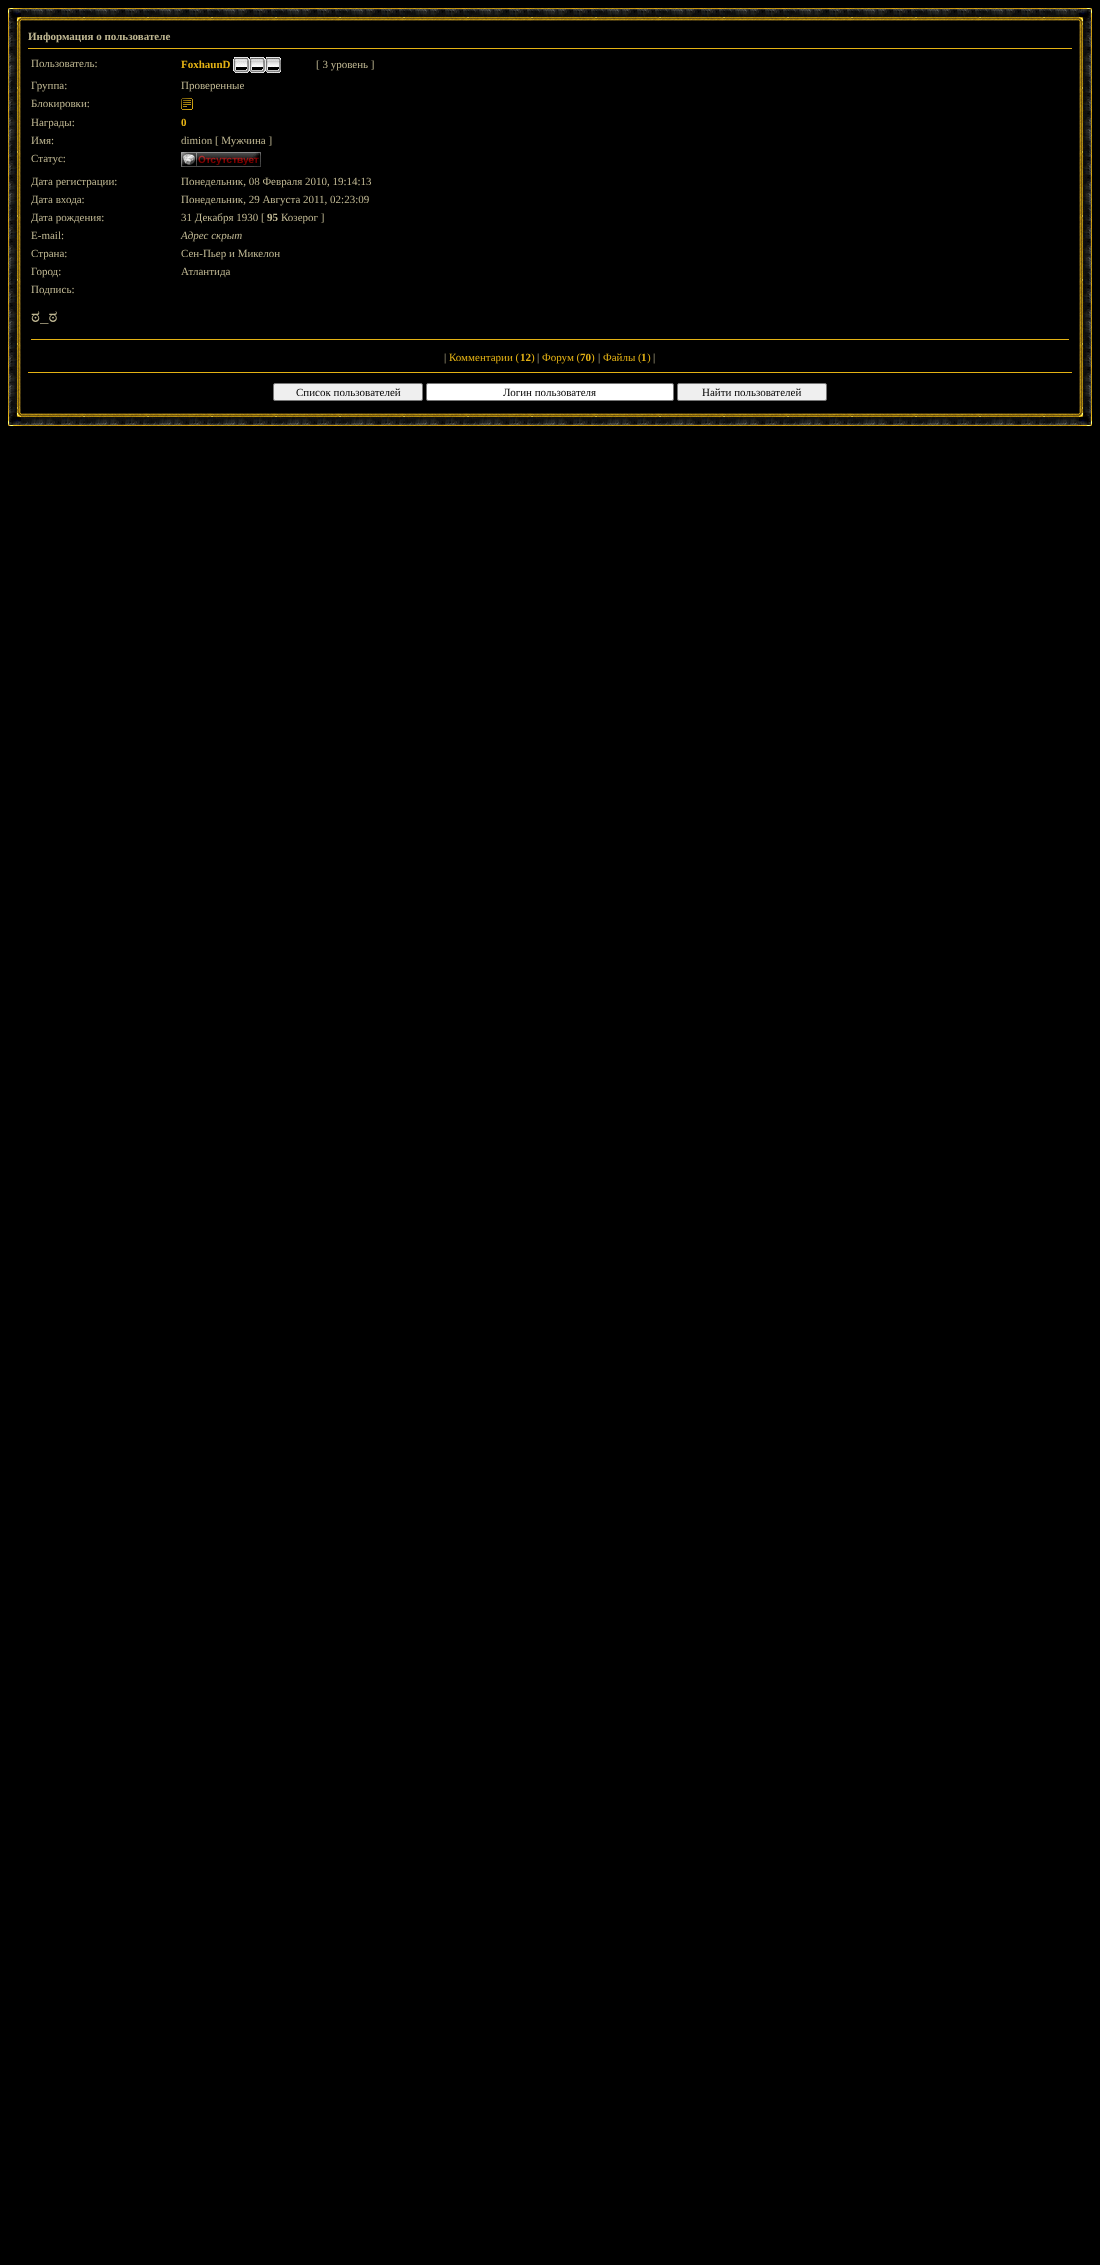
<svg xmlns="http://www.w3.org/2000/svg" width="1100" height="2265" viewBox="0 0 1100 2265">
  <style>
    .t1 { font: bold 11px Liberation Serif; fill: #bfb792; }
    .t2 { font: 11px Liberation Serif; fill: #bfb792; }
    .t3 { font: bold 11px Liberation Serif; fill: #e4b214; }
    .t4 { font: italic 11px Liberation Serif; fill: #bfb792; }
    .t5 { font: 17px FreeSerif; fill: #bfb792; }
    .t6 { font: 11px Liberation Serif; fill: #e4b214; }
    .t7 { font: 11px Liberation Serif; fill: #000; }
  </style>
  <rect width="100%" height="100%" fill="#000"/>
  <image x="8" y="21" width="13" height="2" href="images/1.png"/>
  <image x="8" y="8" width="13" height="13" href="images/2.png"/>
  <image x="21" y="8" width="1058" height="13" href="images/3.png"/>
  <image x="1079" y="21" width="13" height="2" href="images/4.png"/>
  <image x="1079" y="8" width="13" height="13" href="images/5.png"/>
  <image x="8" y="23" width="13" height="390" href="images/6.png"/>
  <text x="28" y="40" class="t1">Информация о пользователе</text>
  <rect x="28" y="48" width="1044" height="1" fill="#e4b214"/>
  <text x="31" y="67" class="t2">Пользователь:</text>
  <text x="181" y="68" class="t3">FoxhaunD</text>
  <image x="233" y="57" width="48" height="16" href="images/7.png"/>
  <text x="316" y="68" class="t2">[ 3 уровень ]</text>
  <text x="31" y="89" class="t2">Группа:</text>
  <text x="181" y="89" class="t2">Проверенные</text>
  <text x="31" y="107" class="t2">Блокировки:</text>
  <image x="181" y="98" width="12" height="12" href="images/8.png"/>
  <text x="31" y="126" class="t2">Награды:</text>
  <text x="181" y="126" class="t3">0</text>
  <text x="31" y="144" class="t2">Имя:</text>
  <text x="181" y="144" class="t2">dimion [ Мужчина ]</text>
  <text x="31" y="162" class="t2">Статус:</text>
  <image x="181" y="152" width="80" height="15" href="images/9.png"/>
  <text x="31" y="185" class="t2">Дата регистрации:</text>
  <text x="181" y="185" class="t2">Понедельник, 08 Февраля 2010, 19:14:13</text>
  <text x="31" y="203" class="t2">Дата входа:</text>
  <text x="181" y="203" class="t2">Понедельник, 29 Августа 2011, 02:23:09</text>
  <text x="31" y="221" class="t2">Дата рождения:</text>
  <text x="181" y="221" class="t2">31 Декабря 1930 [</text>
  <text x="267" y="221" class="t1">95</text>
  <text x="281" y="221" class="t2">Козерог ]</text>
  <text x="31" y="239" class="t2">E-mail:</text>
  <text x="181" y="239" class="t4">Адрес скрыт</text>
  <text x="31" y="257" class="t2">Страна:</text>
  <text x="181" y="257" class="t2">Сен-Пьер и Микелон</text>
  <text x="31" y="275" class="t2">Город:</text>
  <text x="181" y="275" class="t2">Атлантида</text>
  <text x="31" y="293" class="t2">Подпись:</text>
  <text x="31" y="322" class="t5">ಠ_ಠ</text>
  <rect x="31" y="339" width="1038" height="1" fill="#e4b214"/>
  <text x="444" y="361" class="t2">|</text>
  <text x="449" y="361" class="t6">Комментарии (</text>
  <text x="520" y="361" class="t3">12</text>
  <text x="531" y="361" class="t6">)</text>
  <text x="537" y="361" class="t2">|</text>
  <text x="542" y="361" class="t6">Форум (</text>
  <text x="580" y="361" class="t3">70</text>
  <text x="591" y="361" class="t6">)</text>
  <text x="598" y="361" class="t2">|</text>
  <text x="603" y="361" class="t6">Файлы (</text>
  <text x="641" y="361" class="t3">1</text>
  <text x="647" y="361" class="t6">)</text>
  <text x="653" y="361" class="t2">|</text>
  <rect x="28" y="372" width="1044" height="1" fill="#e4b214"/>
  <rect x="273.5" y="383.5" width="149" height="17" rx="1.5" fill="#efefef" stroke="#767676"/>
  <text x="296" y="396" class="t7">Список пользователей</text>
  <rect x="426.5" y="383.5" width="247" height="17" rx="1.5" fill="#fff" stroke="#767676"/>
  <text x="503" y="396" class="t7">Логин пользователя</text>
  <rect x="677.5" y="383.5" width="149" height="17" rx="1.5" fill="#efefef" stroke="#767676"/>
  <text x="702" y="396" class="t7">Найти пользователей</text>
  <image x="1079" y="23" width="13" height="390" href="images/10.png"/>
  <image x="8" y="413" width="13" height="13" href="images/11.png"/>
  <image x="21" y="413" width="1058" height="13" href="images/12.png"/>
  <image x="1079" y="413" width="13" height="13" href="images/13.png"/>
</svg>
